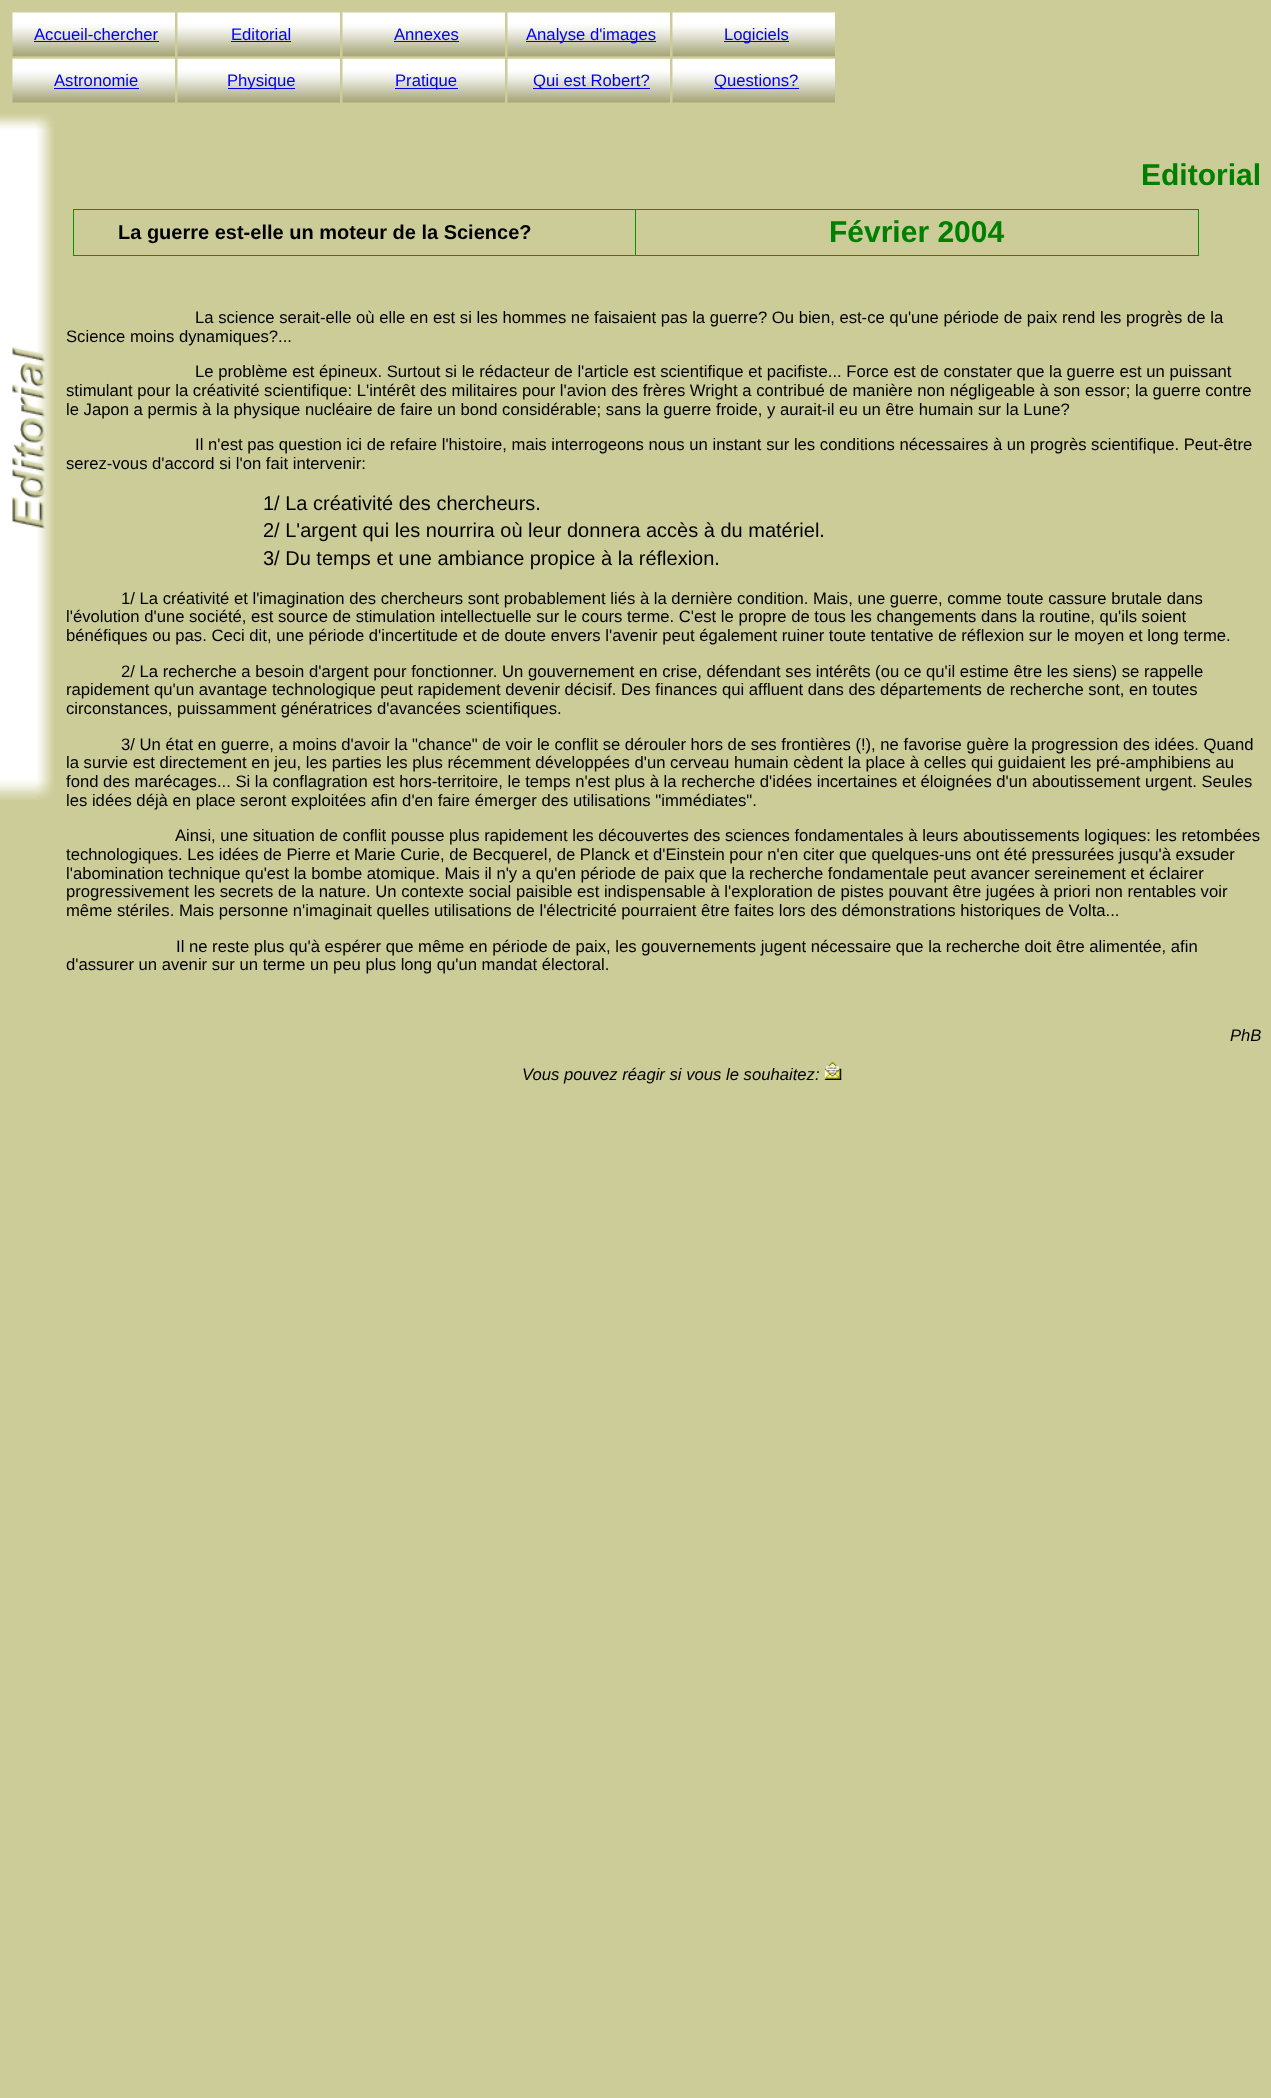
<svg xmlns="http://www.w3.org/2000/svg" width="1271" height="2098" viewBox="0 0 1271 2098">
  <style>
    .t1 { font: 16.67px Liberation Sans; fill: #00e; }
    .t2 { font: bold 30px Liberation Sans; fill: #008000; }
    .t3 { font: bold 20px Liberation Sans; fill: #000; }
    .t4 { font: 16.67px Liberation Sans; fill: #000; }
    .t5 { font: 20px Liberation Sans; fill: #000; }
    .t6 { font: italic 16.67px Liberation Sans; fill: #000; }
  </style>
  <rect width="100%" height="100%" fill="#cc9"/>
  <image x="12" y="12" width="163" height="45" href="images/1.png"/>
  <text x="34" y="40" class="t1">Accueil-chercher</text>
  <rect x="34" y="41" width="125" height="1" fill="#00e"/>
  <image x="177" y="12" width="163" height="45" href="images/2.png"/>
  <text x="231" y="40" class="t1">Editorial</text>
  <rect x="231" y="41" width="60" height="1" fill="#00e"/>
  <image x="342" y="12" width="163" height="45" href="images/3.png"/>
  <text x="394" y="40" class="t1">Annexes</text>
  <rect x="394" y="41" width="65" height="1" fill="#00e"/>
  <image x="507" y="12" width="163" height="45" href="images/4.png"/>
  <rect x="526" y="41" width="130" height="1" fill="#00e"/>
  <text x="526" y="40" class="t1">Analyse d'images</text>
  <image x="672" y="12" width="163" height="45" href="images/5.png"/>
  <rect x="724" y="41" width="65" height="1" fill="#00e"/>
  <text x="724" y="40" class="t1">Logiciels</text>
  <image x="12" y="58" width="163" height="45" href="images/6.png"/>
  <text x="54" y="86" class="t1">Astronomie</text>
  <rect x="54" y="88" width="85" height="1" fill="#00e"/>
  <image x="177" y="58" width="163" height="45" href="images/7.png"/>
  <rect x="228" y="88" width="67" height="1" fill="#00e"/>
  <text x="227" y="86" class="t1">Physique</text>
  <image x="342" y="58" width="163" height="45" href="images/8.png"/>
  <rect x="395" y="88" width="63" height="1" fill="#00e"/>
  <text x="395" y="86" class="t1">Pratique</text>
  <image x="507" y="58" width="163" height="45" href="images/6.png"/>
  <rect x="533" y="88" width="117" height="1" fill="#00e"/>
  <text x="533" y="86" class="t1">Qui est Robert?</text>
  <image x="672" y="58" width="163" height="45" href="images/9.png"/>
  <rect x="714" y="88" width="85" height="1" fill="#00e"/>
  <text x="714" y="86" class="t1">Questions?</text>
  <image x="0" y="113" width="54" height="687" href="images/10.png"/>
  <text x="1141" y="185" class="t2">Editorial</text>
  <rect x="73" y="209" width="1126" height="1" fill="#090"/>
  <rect x="1198" y="209" width="1" height="47" fill="#090"/>
  <rect x="73" y="255" width="1126" height="1" fill="#090"/>
  <rect x="73" y="209" width="1" height="47" fill="#090"/>
  <text x="118" y="239" class="t3">La guerre est-elle un moteur de la Science?</text>
  <rect x="635" y="209" width="1" height="47" fill="#090"/>
  <text x="829" y="242" class="t2">Février 2004</text>
  <text x="195" y="323" class="t4">La science serait-elle où elle en est si les hommes ne faisaient pas la guerre? Ou bien, est-ce qu'une période de paix rend les progrès de la</text>
  <text x="66" y="342" class="t4">Science moins dynamiques?...</text>
  <text x="195" y="377" class="t4">Le problème est épineux. Surtout si le rédacteur de l'article est scientifique et pacifiste... Force est de constater que la guerre est un puissant</text>
  <text x="66" y="396" class="t4">stimulant pour la créativité scientifique: L'intérêt des militaires pour l'avion des frères Wright a contribué de manière non négligeable à son essor; la guerre contre</text>
  <text x="66" y="415" class="t4">le Japon a permis à la physique nucléaire de faire un bond considérable; sans la guerre froide, y aurait-il eu un être humain sur la Lune?</text>
  <text x="195" y="450" class="t4">Il n'est pas question ici de refaire l'histoire, mais interrogeons nous un instant sur les conditions nécessaires à un progrès scientifique. Peut-être</text>
  <text x="66" y="469" class="t4">serez-vous d'accord si l'on fait intervenir:</text>
  <text x="263" y="510" class="t5">1/ La créativité des chercheurs.</text>
  <text x="263" y="537" class="t5">2/ L'argent qui les nourrira où leur donnera accès à du matériel.</text>
  <text x="263" y="565" class="t5">3/ Du temps et une ambiance propice à la réflexion.</text>
  <text x="121" y="604" class="t4">1/ La créativité et l'imagination des chercheurs sont probablement liés à la dernière condition. Mais, une guerre, comme toute cassure brutale dans</text>
  <text x="66" y="622" class="t4">l'évolution d'une société, est source de stimulation intellectuelle sur le cours terme. C'est le propre de tous les changements dans la routine, qu'ils soient</text>
  <text x="66" y="641" class="t4">bénéfiques ou pas. Ceci dit, une période d'incertitude et de doute envers l'avenir peut également ruiner toute tentative de réflexion sur le moyen et long terme.</text>
  <text x="121" y="677" class="t4">2/ La recherche a besoin d'argent pour fonctionner. Un gouvernement en crise, défendant ses intérêts (ou ce qu'il estime être les siens) se rappelle</text>
  <text x="66" y="695" class="t4">rapidement qu'un avantage technologique peut rapidement devenir décisif. Des finances qui affluent dans des départements de recherche sont, en toutes</text>
  <text x="66" y="714" class="t4">circonstances, puissamment génératrices d'avancées scientifiques.</text>
  <text x="121" y="750" class="t4">3/ Un état en guerre, a moins d'avoir la "chance" de voir le conflit se dérouler hors de ses frontières (!), ne favorise guère la progression des idées. Quand</text>
  <text x="66" y="768" class="t4">la survie est directement en jeu, les parties les plus récemment développées d'un cerveau humain cèdent la place à celles qui guidaient les pré-amphibiens au</text>
  <text x="66" y="787" class="t4">fond des marécages... Si la conflagration est hors-territoire, le temps n'est plus à la recherche d'idées incertaines et éloignées d'un aboutissement urgent. Seules</text>
  <text x="66" y="806" class="t4">les idées déjà en place seront exploitées afin d'en faire émerger des utilisations "immédiates".</text>
  <text x="175" y="841" class="t4">Ainsi, une situation de conflit pousse plus rapidement les découvertes des sciences fondamentales à leurs aboutissements logiques: les retombées</text>
  <text x="66" y="860" class="t4">technologiques. Les idées de Pierre et Marie Curie, de Becquerel, de Planck et d'Einstein pour n'en citer que quelques-uns ont été pressurées jusqu'à exsuder</text>
  <text x="66" y="879" class="t4">l'abomination technique qu'est la bombe atomique. Mais il n'y a qu'en période de paix que la recherche fondamentale peut avancer sereinement et éclairer</text>
  <text x="66" y="897" class="t4">progressivement les secrets de la nature. Un contexte social paisible est indispensable à l'exploration de pistes pouvant être jugées à priori non rentables voir</text>
  <text x="66" y="916" class="t4">même stériles. Mais personne n'imaginait quelles utilisations de l'électricité pourraient être faites lors des démonstrations historiques de Volta...</text>
  <text x="176" y="952" class="t4">Il ne reste plus qu'à espérer que même en période de paix, les gouvernements jugent nécessaire que la recherche doit être alimentée, afin</text>
  <text x="66" y="970" class="t4">d'assurer un avenir sur un terme un peu plus long qu'un mandat électoral.</text>
  <text x="1230" y="1041" class="t6">PhB</text>
  <text x="522" y="1080" class="t6">Vous pouvez réagir si vous le souhaitez:</text>
  <image x="824" y="1062" width="18" height="18" href="images/11.png"/>
</svg>
